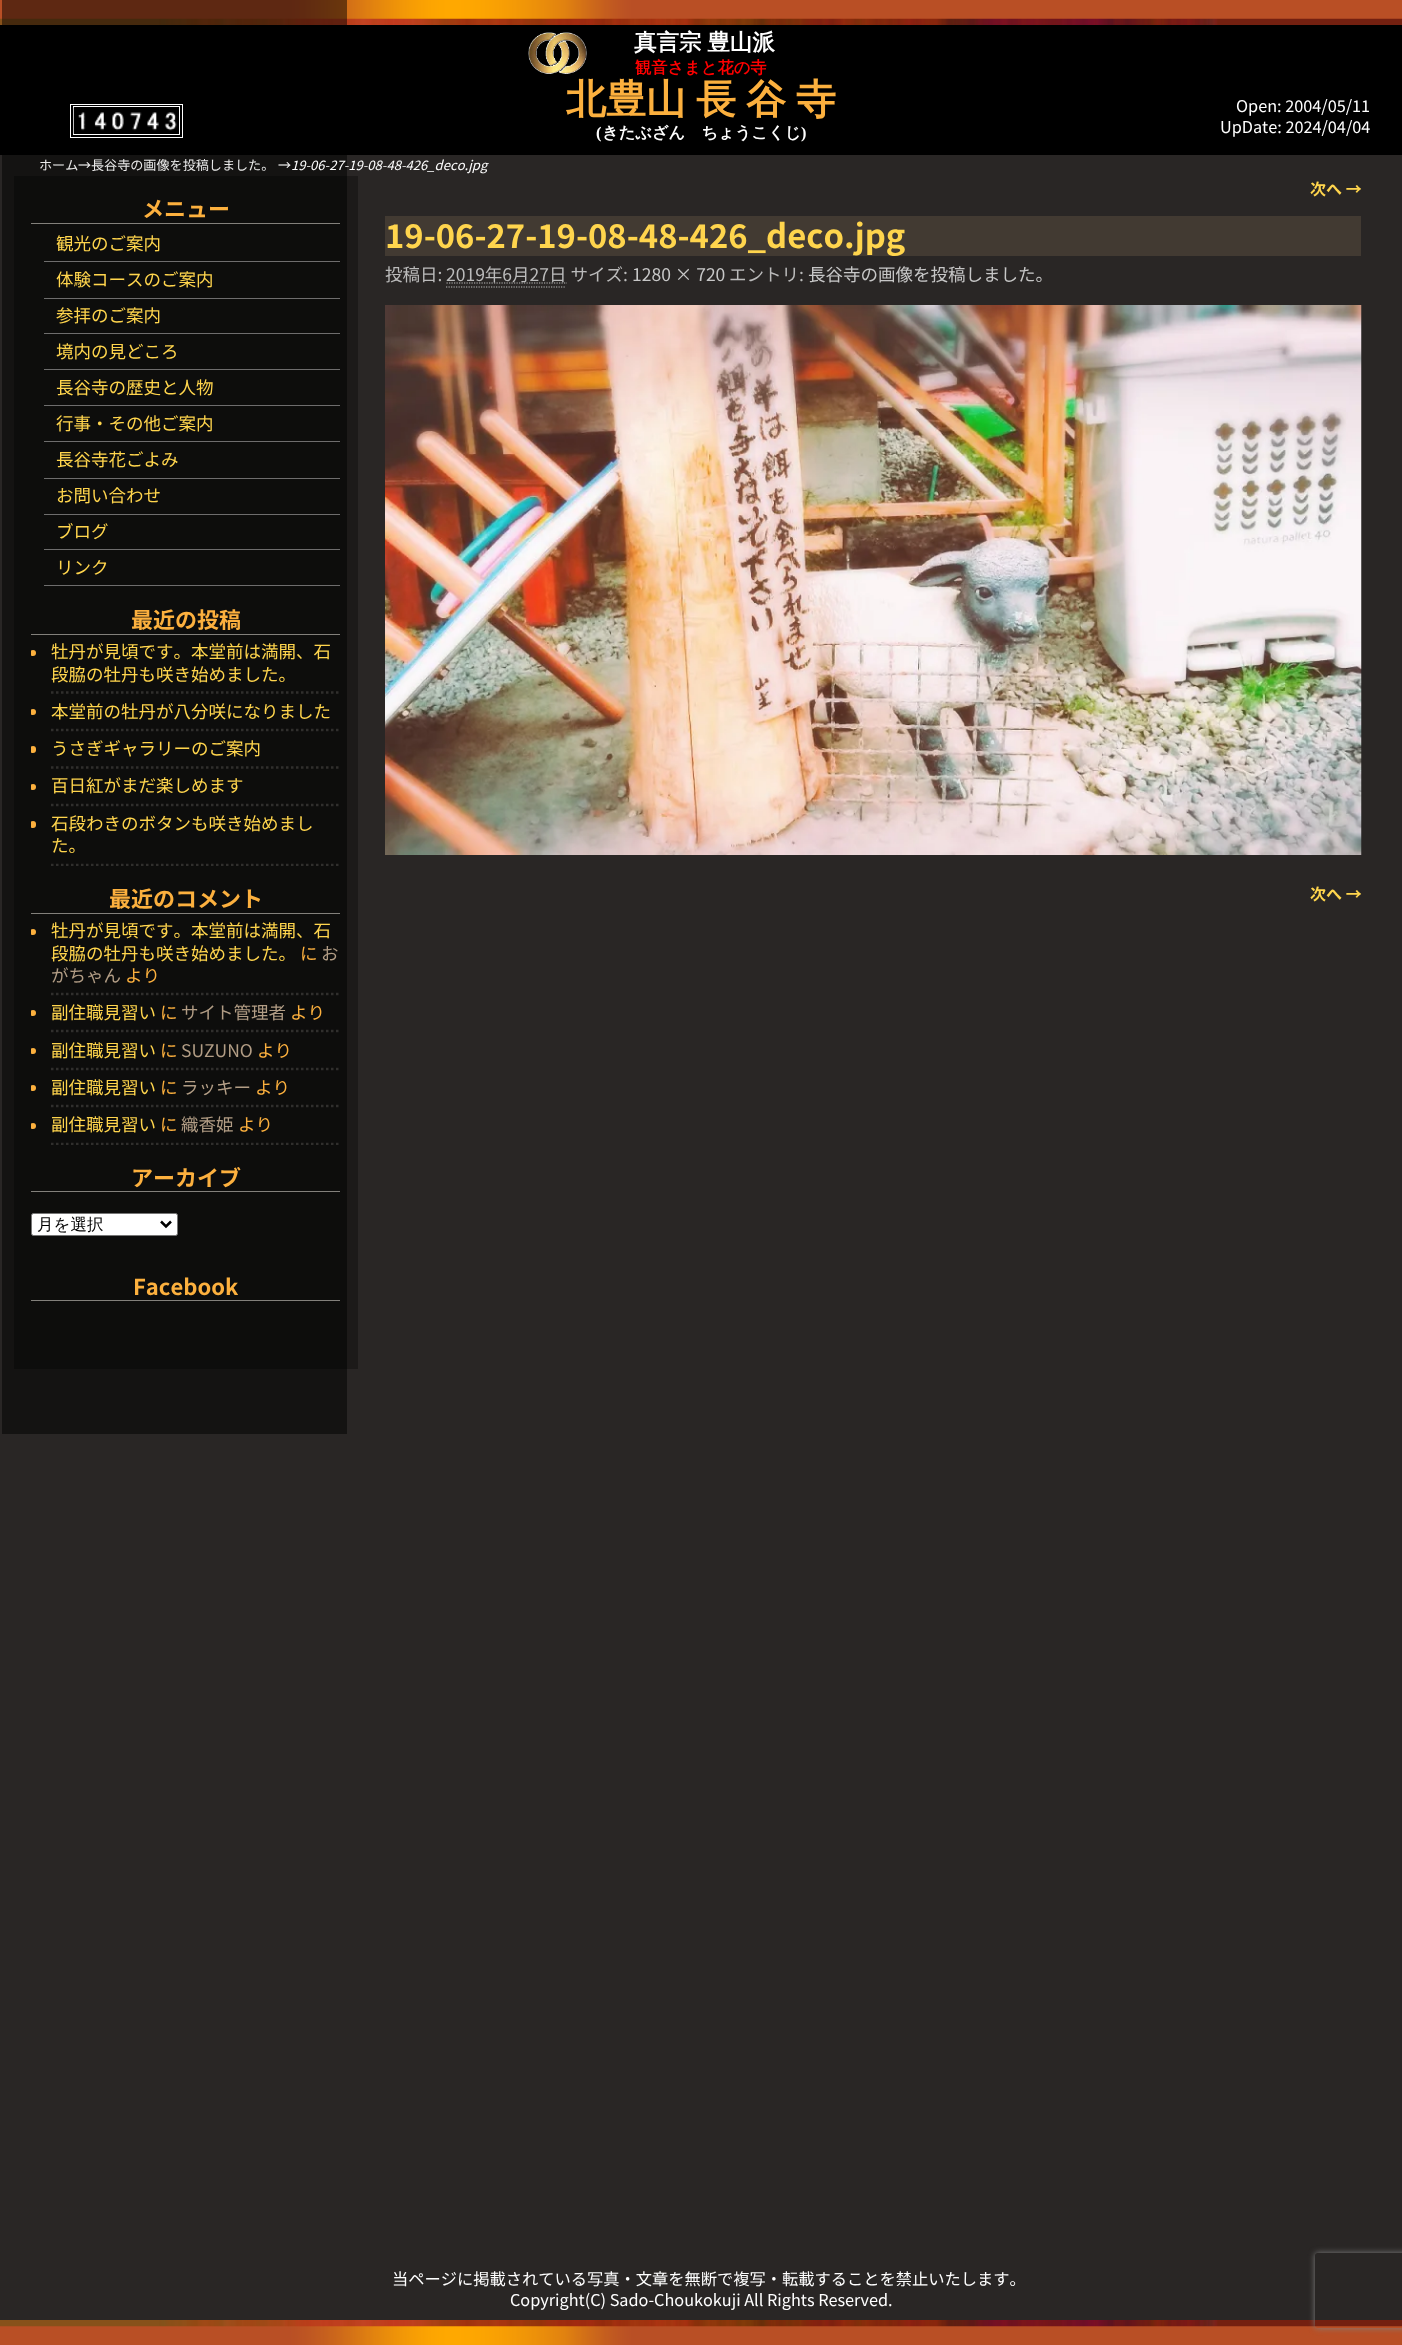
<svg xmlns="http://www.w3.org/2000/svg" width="1402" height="2345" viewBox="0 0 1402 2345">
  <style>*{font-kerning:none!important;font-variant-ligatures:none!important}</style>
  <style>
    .t1 { font: bold 22.5px WenQuanYi Zen Hei; fill: #fff; }
    .t2 { font: bold 16.25px WenQuanYi Zen Hei; fill: #f00; }
    .t3 { font: bold 40px WenQuanYi Zen Hei; fill: #fcb03e; }
    .t4 { font: bold 16.25px Liberation Serif; fill: #fff; }
    .t5 { font: bold 16.25px WenQuanYi Zen Hei; fill: #fff; }
    .t6 { font: 16.25px Noto Sans JP; fill: #fff; }
    .t7 { font: 13.1px Noto Sans JP; fill: #ebebeb; }
    .t8 { font: 13.1px Noto Sans JP; fill: #fff; }
    .t9 { font: italic 13.1px Noto Sans JP; fill: #fff; }
    .t10 { font: bold 22px Noto Sans JP; fill: #fcb03e; }
    .t11 { font: 17.5px Noto Sans JP; fill: #ffd54d; }
    .t12 { font: 17.5px Noto Sans JP; fill: #fcb03e; }
    .t13 { font: 17.5px Noto Sans JP; fill: #b29d85; }
    .t14 { font: 500 16.5px WenQuanYi Zen Hei; fill: #000; }
    .t15 { font: bold 16px Noto Sans JP; fill: #ffd54d; }
    .t16 { font: bold 32.75px Noto Sans JP; fill: #ffd54d; }
    .t17 { font: 17.5px Noto Sans JP; fill: #bbb; }
    .t18 { font: 17.5px Noto Sans JP; fill: #c7c7c7; }
  </style>
  <defs>
    <clipPath id="clip1"><rect x="31" y="586" width="309" height="280"/></clipPath>
    <clipPath id="clip2"><rect x="31" y="866" width="309" height="279"/></clipPath>
    <clipPath id="clip3"><path d="M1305 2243H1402V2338H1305ZM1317.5 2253H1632.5C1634 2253 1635 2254 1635 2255.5V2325.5C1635 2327 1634 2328 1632.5 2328H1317.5C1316 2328 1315 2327 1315 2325.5V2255.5C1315 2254 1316 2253 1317.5 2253Z" clip-rule="evenodd"/></clipPath>
  </defs>
  <rect width="100%" height="100%" fill="#292625"/>
  <image x="0" y="0" width="1402" height="19" href="images/1.png"/>
  <image x="0" y="18" width="1402" height="7" href="images/2.png"/>
  <rect x="0" y="25" width="1402" height="130" fill="#000"/>
  <rect x="2" y="0" width="345" height="1434" fill="#0000007d"/>
  <image x="528" y="32" width="59" height="42" href="images/3.png"/>
  <text x="634" y="50" word-spacing="-1" class="t1">真言宗 豊山派</text>
  <text x="635" y="73" class="t2">観音さまと花の寺</text>
  <rect x="70.5" y="104.5" width="112" height="33" fill="none" stroke="#fff"/>
  <rect x="73.5" y="106.5" width="106" height="28" fill="none" stroke="#fff"/>
  <image x="73" y="107" width="104" height="27" href="images/4.png"/>
  <text x="566" y="113" class="t3">北豊山</text>
  <text x="696" y="113" word-spacing="-2" class="t3">長 谷 寺</text>
  <text x="596" y="138" class="t4">(</text>
  <text x="602" y="138" class="t5">きたぶざん　ちょうこくじ</text>
  <text x="801" y="138" class="t4">)</text>
  <text x="1236" y="112" class="t6">Open: 2004/05/11</text>
  <text x="1220" y="133" class="t6">UpDate: 2024/04/04</text>
  <text x="39" y="170" class="t7">ホーム</text>
  <text x="78" y="170" class="t8">→</text>
  <text x="91" y="170" class="t7">長谷寺の画像を投稿しました。</text>
  <text x="278" y="170" class="t8">→</text>
  <text x="291" y="170" class="t9">19-06-27-19-08-48-426_deco.jpg</text>
  <rect x="14" y="176" width="344" height="1193" fill="#0000004d"/>
  <rect x="31" y="223" width="309" height="1" fill="#82807b"/>
  <text x="142" y="217" class="t10">メニュー</text>
  <rect x="44" y="261" width="296" height="1" fill="#6e6d6d"/>
  <text x="56" y="250" class="t11">観光のご案内</text>
  <rect x="44" y="298" width="296" height="1" fill="#6e6d6d"/>
  <text x="56" y="286" class="t11">体験コースのご案内</text>
  <rect x="44" y="333" width="296" height="1" fill="#6e6d6d"/>
  <text x="56" y="322" class="t11">参拝のご案内</text>
  <rect x="44" y="369" width="296" height="1" fill="#6e6d6d"/>
  <text x="56" y="358" class="t11">境内の見どころ</text>
  <rect x="44" y="405" width="296" height="1" fill="#6e6d6d"/>
  <text x="56" y="394" class="t11">長谷寺の歴史と人物</text>
  <rect x="44" y="441" width="296" height="1" fill="#6e6d6d"/>
  <text x="56" y="430" class="t11">行事・その他ご案内</text>
  <rect x="44" y="478" width="296" height="1" fill="#6e6d6d"/>
  <text x="56" y="466" class="t11">長谷寺花ごよみ</text>
  <rect x="44" y="514" width="296" height="1" fill="#6e6d6d"/>
  <text x="56" y="502" class="t11">お問い合わせ</text>
  <rect x="44" y="549" width="296" height="1" fill="#6e6d6d"/>
  <text x="56" y="538" class="t11">ブログ</text>
  <rect x="44" y="585" width="296" height="1" fill="#6e6d6d"/>
  <text x="56" y="574" class="t11">リンク</text>
  <rect x="31" y="634" width="309" height="1" fill="#82807b"/>
  <text x="131" y="628" class="t10">最近の投稿</text>
  <path d="M51 692.5H340" fill="none" stroke="#302f2d" stroke-width="2.5" stroke-dasharray="2.5 2.5"/>
  <g clip-path="url(#clip1)">
    <circle cx="33" cy="653" r="3" fill="#fcb03e"/>
  </g>
  <text x="51" y="658" class="t11">牡丹が見頃です。本堂前は満開、石</text>
  <text x="51" y="681" class="t11">段脇の牡丹も咲き始めました。</text>
  <path d="M51 730H340" fill="none" stroke="#302f2d" stroke-width="2.5" stroke-dasharray="2.5 2.5"/>
  <g clip-path="url(#clip1)">
    <circle cx="33" cy="712" r="3" fill="#fcb03e"/>
  </g>
  <text x="51" y="718" class="t11">本堂前の牡丹が八分咲になりました</text>
  <path d="M51 767.5H340" fill="none" stroke="#302f2d" stroke-width="2.5" stroke-dasharray="2.5 2.5"/>
  <g clip-path="url(#clip1)">
    <rect x="30" y="746" width="6" height="7" rx="3" fill="#fcb03e"/>
  </g>
  <text x="51" y="755" class="t11">うさぎギャラリーのご案内</text>
  <path d="M51 805H340" fill="none" stroke="#302f2d" stroke-width="2.5" stroke-dasharray="2.5 2.5"/>
  <g clip-path="url(#clip1)">
    <circle cx="33" cy="787" r="3" fill="#fcb03e"/>
  </g>
  <text x="51" y="792" class="t11">百日紅がまだ楽しめます</text>
  <g clip-path="url(#clip1)">
    <path d="M51 865H340" fill="none" stroke="#302f2d" stroke-width="2.5" stroke-dasharray="2.5 2.5"/>
    <rect x="30" y="821" width="6" height="7" rx="3" fill="#fcb03e"/>
  </g>
  <text x="51" y="830" class="t11">石段わきのボタンも咲き始めまし</text>
  <text x="51" y="852" class="t11">た。</text>
  <rect x="31" y="913" width="309" height="1" fill="#82807b"/>
  <text x="109" y="907" class="t10">最近のコメント</text>
  <path d="M51 994H340" fill="none" stroke="#302f2d" stroke-width="2.5" stroke-dasharray="2.5 2.5"/>
  <g clip-path="url(#clip2)">
    <circle cx="33" cy="932" r="3" fill="#fcb03e"/>
  </g>
  <text x="51" y="937" class="t11">牡丹が見頃です。本堂前は満開、石</text>
  <text x="51" y="960" class="t11">段脇の牡丹も咲き始めました。</text>
  <text x="300" y="960" class="t12">に</text>
  <text x="321" y="960" class="t13">お</text>
  <text x="51" y="982" class="t13">がちゃん</text>
  <text x="125" y="982" class="t12">より</text>
  <path d="M51 1031H340" fill="none" stroke="#302f2d" stroke-width="2.5" stroke-dasharray="2.5 2.5"/>
  <g clip-path="url(#clip2)">
    <circle cx="33" cy="1013" r="3" fill="#fcb03e"/>
  </g>
  <text x="51" y="1019" class="t11">副住職見習い</text>
  <text x="160" y="1019" class="t12">に</text>
  <text x="181" y="1019" class="t13">サイト管理者</text>
  <text x="290" y="1019" class="t12">より</text>
  <path d="M51 1069H340" fill="none" stroke="#302f2d" stroke-width="2.5" stroke-dasharray="2.5 2.5"/>
  <g clip-path="url(#clip2)">
    <circle cx="33" cy="1051" r="3" fill="#fcb03e"/>
  </g>
  <text x="51" y="1057" class="t11">副住職見習い</text>
  <text x="160" y="1057" class="t12">に</text>
  <text x="181" y="1057" class="t13">SUZUNO</text>
  <text x="257" y="1057" class="t12">より</text>
  <path d="M51 1106H340" fill="none" stroke="#302f2d" stroke-width="2.5" stroke-dasharray="2.5 2.5"/>
  <g clip-path="url(#clip2)">
    <circle cx="33" cy="1088" r="3" fill="#fcb03e"/>
  </g>
  <text x="51" y="1094" class="t11">副住職見習い</text>
  <text x="160" y="1094" class="t12">に</text>
  <text x="181" y="1094" class="t13">ラッキー</text>
  <text x="255" y="1094" class="t12">より</text>
  <g clip-path="url(#clip2)">
    <path d="M51 1144H340" fill="none" stroke="#302f2d" stroke-width="2.5" stroke-dasharray="2.5 2.5"/>
    <circle cx="33" cy="1126" r="3" fill="#fcb03e"/>
  </g>
  <text x="51" y="1131" class="t11">副住職見習い</text>
  <text x="160" y="1131" class="t12">に</text>
  <text x="181" y="1131" class="t13">織香姫</text>
  <text x="238" y="1131" class="t12">より</text>
  <rect x="31" y="1191" width="309" height="1" fill="#82807b"/>
  <text x="131" y="1186" class="t10">アーカイブ</text>
  <rect x="31.5" y="1213.5" width="146" height="22" rx="2" fill="#fff" stroke="#767676"/>
  <path d="M161 1221.5L166 1226.5L171 1221.5" fill="none" stroke="#000" stroke-width="2.5"/>
  <text x="37" y="1230" class="t14">月を選択</text>
  <rect x="31" y="1300" width="309" height="1" fill="#82807b"/>
  <text x="133" y="1295" class="t10">Facebook</text>
  <text x="1310" y="195" class="t15">次へ →</text>
  <rect x="385" y="216" width="976" height="40" fill="#423a32"/>
  <text x="385" y="248" class="t16">19-06-27-19-08-48-426_deco.jpg</text>
  <text x="385" y="281" class="t17">投稿日:</text>
  <path d="M446.5 283H567" fill="none" stroke="#bbb" stroke-width="1.2" stroke-dasharray="1.25 1.25"/>
  <text x="446" y="281" class="t17">2019年6月27日 サイズ:</text>
  <path d="M446 287H566" fill="none" stroke="#bbb" stroke-width="1.2" stroke-dasharray="1.25 1.25"/>
  <text x="632" y="281" class="t18">1280 × 720</text>
  <text x="729" y="281" class="t17">エントリ:</text>
  <text x="808" y="281" class="t18">長谷寺の画像を投稿しました。</text>
  <image x="385" y="305" width="977" height="550" href="images/5.png"/>
  <text x="1310" y="900" class="t15">次へ →</text>
  <text x="392" y="2285" class="t6">当ページに掲載されている写真・文章を無断で複写・転載することを禁止いたします。</text>
  <text x="510" y="2306" class="t6">Copyright(C) Sado-Choukokuji All Rights Reserved.</text>
  <image x="0" y="2326" width="1402" height="19" href="images/1.png"/>
  <image x="0" y="2320" width="1402" height="7" href="images/6.png"/>
  <g clip-path="url(#clip3)">
    <rect x="1315" y="2253" width="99" height="75" rx="2.5" fill="#808080" filter="blur(3px)"/>
  </g>
</svg>
